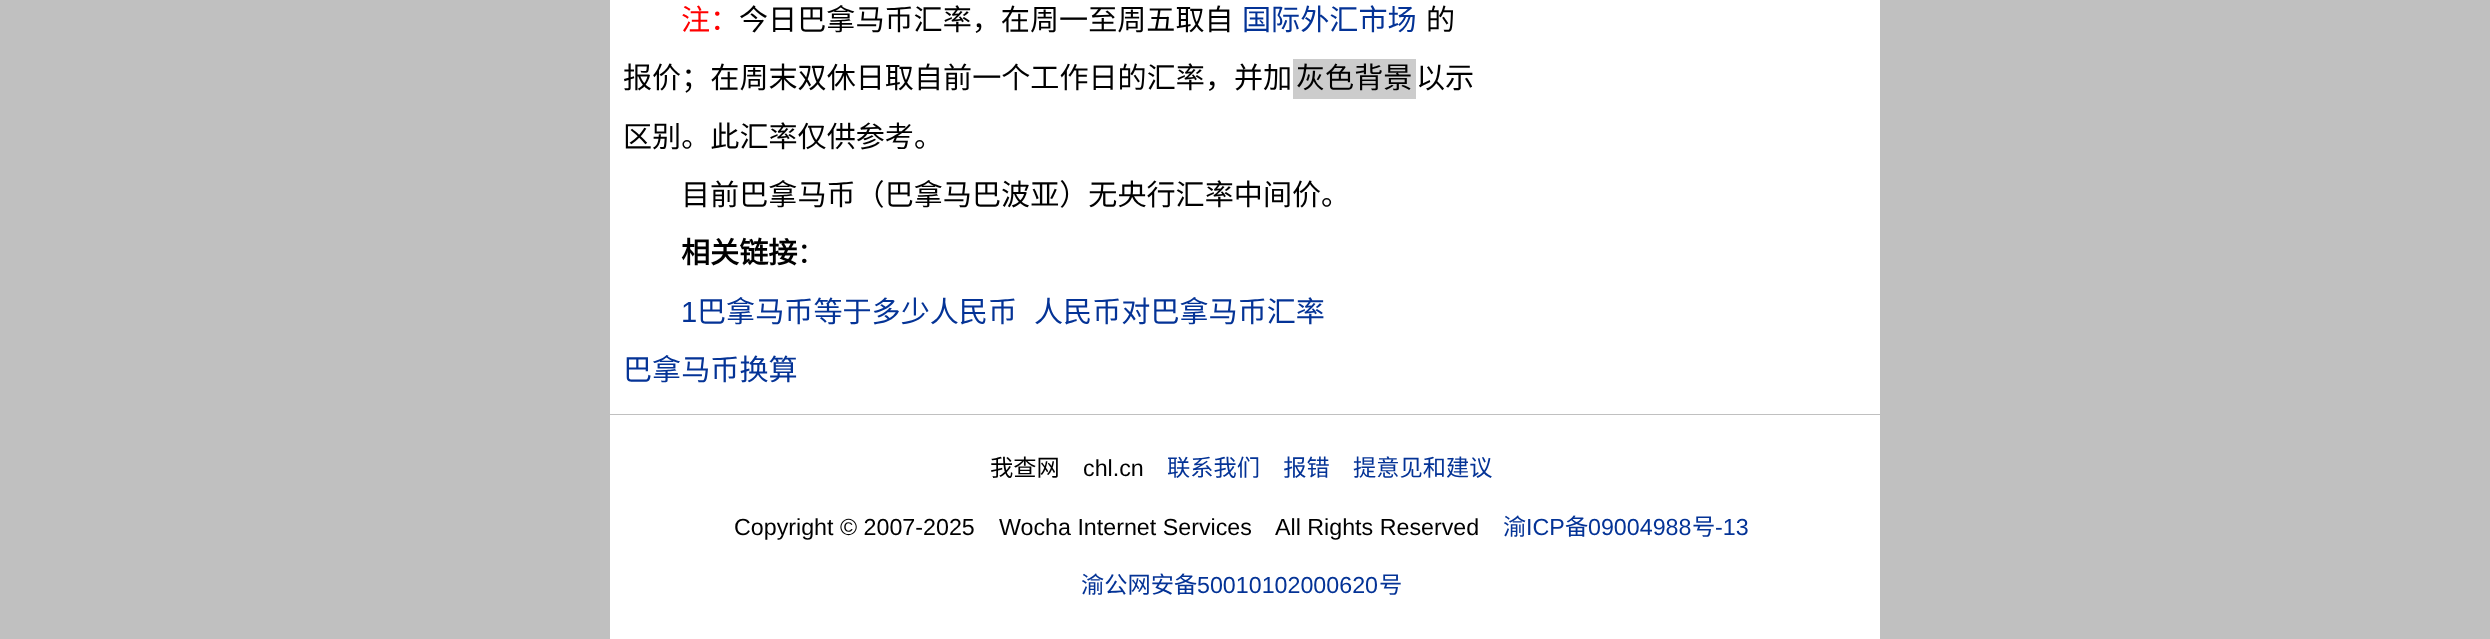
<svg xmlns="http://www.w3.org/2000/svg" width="2490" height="639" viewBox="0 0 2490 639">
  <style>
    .t1 { font: 29.1px Noto Sans CJK SC; fill: #f00; }
    .t2 { font: 29.1px Noto Sans CJK SC; fill: #000; }
    .t3 { font: 29.1px Noto Sans CJK SC; fill: #043396; }
    .t4 { font: bold 29.1px Noto Sans CJK SC; fill: #000; }
    .t5 { font: 29.1px Liberation Sans; fill: #043396; }
    .t6 { font: 23.25px Noto Sans CJK SC; fill: #000; }
    .t7 { font: 23.25px Liberation Sans; fill: #000; }
    .t8 { font: 23.25px Noto Sans CJK SC; fill: #043396; }
    .t9 { font: 23.25px Liberation Sans; fill: #043396; }
  </style>
  <rect width="100%" height="100%" fill="#c0c0c0"/>
  <rect x="610" y="0" width="1270" height="639" fill="#fff"/>
  <text x="681" y="30" class="t1">注：</text>
  <text x="739" y="30" class="t2">今日巴拿马币汇率，在周一至周五取自</text>
  <text x="1242" y="30" class="t3">国际外汇市场</text>
  <text x="1426" y="30" class="t2">的</text>
  <text x="623" y="88" class="t2">报价；在周末双休日取自前一个工作日的汇率，并加</text>
  <rect x="1293" y="59" width="123" height="40" fill="#ccc"/>
  <text x="1296" y="88" class="t2">灰色背景</text>
  <text x="1416" y="88" class="t2">以示</text>
  <text x="623" y="147" class="t2">区别。此汇率仅供参考。</text>
  <text x="681" y="205" class="t2">目前巴拿马币（巴拿马巴波亚）无央行汇率中间价。</text>
  <text x="681" y="263" class="t4">相关链接</text>
  <text x="797" y="263" class="t2">：</text>
  <text x="681" y="322" class="t5">1</text>
  <text x="697" y="322" class="t3">巴拿马币等于多少人民币</text>
  <text x="1034" y="322" class="t3">人民币对巴拿马币汇率</text>
  <text x="623" y="380" class="t3">巴拿马币换算</text>
  <rect x="610" y="414" width="1270" height="1" fill="#c0c0c0"/>
  <text x="990" y="476" class="t6">我查网</text>
  <text x="1083" y="476" class="t7">chl.cn</text>
  <text x="1167" y="476" class="t8">联系我们　报错　提意见和建议</text>
  <text x="734" y="535" class="t7">Copyright © 2007-2025</text>
  <text x="999" y="535" class="t7">Wocha Internet Services</text>
  <text x="1275" y="535" class="t7">All Rights Reserved</text>
  <text x="1503" y="535" class="t8">渝</text>
  <text x="1526" y="535" class="t9">ICP</text>
  <text x="1565" y="535" class="t8">备</text>
  <text x="1588" y="535" class="t9">09004988</text>
  <text x="1692" y="535" class="t8">号</text>
  <text x="1715" y="535" class="t9">-13</text>
  <text x="1081" y="593" class="t8">渝公网安备</text>
  <text x="1197" y="593" class="t9">50010102000620</text>
  <text x="1379" y="593" class="t8">号</text>
</svg>
